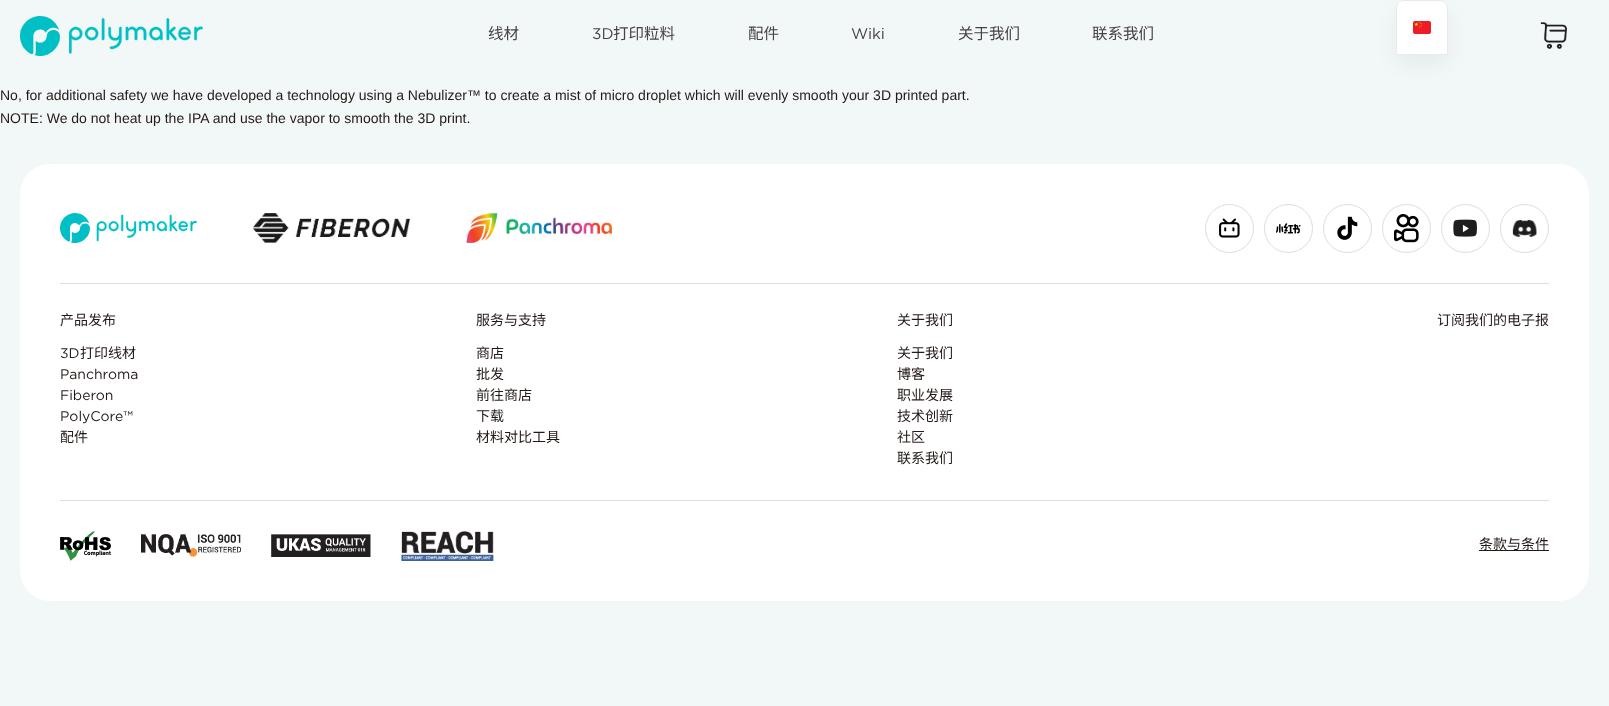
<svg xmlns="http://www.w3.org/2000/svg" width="1609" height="706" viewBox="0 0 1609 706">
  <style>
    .t1 { font: 15.5px Noto Sans CJK SC; fill: #474342; }
    .t2 { font: 15.5px Gotham; fill: #474342; }
    .t3 { font: 14px Liberation Sans; fill: #231916; }
    .t4 { font: 14px Noto Sans CJK SC; fill: #231916; }
    .t5 { font: 14px Gotham; fill: #231916; }
  </style>
  <rect width="100%" height="100%" fill="#f2f7f8"/>
  <image x="20" y="16" width="183" height="40" href="images/1.png"/>
  <text x="488" y="39" class="t1">线材</text>
  <text x="592" y="39" class="t2">3D</text>
  <text x="613" y="39" class="t1">打印粒料</text>
  <text x="748" y="39" class="t1">配件</text>
  <text x="851" y="39" class="t2">Wiki</text>
  <text x="958" y="39" class="t1">关于我们</text>
  <text x="1092" y="39" class="t1">联系我们</text>
  <image x="1540" y="22" width="27" height="27" href="images/2.png"/>
  <rect x="1396" y="10" width="52" height="55" rx="8" fill="#0000000d" filter="blur(10px)"/>
  <path d="M1404 0H1440C1444.5 0 1448 3.5 1448 8V55H1396V8C1396 3.5 1399.5 0 1404 0Z" fill="#fff"/>
  <path d="M1404 .5H1440C1444 .5 1447.5 4 1447.5 8V54.5H1396.5V8C1396.5 4 1400 .5 1404 .5Z" fill="none" stroke="#1438521a"/>
  <image x="1413" y="21" width="18" height="13" href="images/3.png"/>
  <text x="0" y="100" class="t3">No, for additional safety we have developed a technology using a Nebulizer™ to create a mist of micro droplet which will evenly smooth your 3D printed part.</text>
  <text x="0" y="123" class="t3">NOTE: We do not heat up the IPA and use the vapor to smooth the 3D print.</text>
  <rect x="20" y="164" width="1569" height="437" rx="30" fill="#fff"/>
  <image x="60" y="213" width="137" height="30" href="images/4.png"/>
  <image x="253" y="213" width="157" height="30" href="images/5.png"/>
  <image x="466" y="213" width="146" height="30" href="images/6.png"/>
  <circle cx="1229.5" cy="228.5" r="24" fill="none" stroke="#ddd"/>
  <image x="1219" y="218" width="21" height="20" href="images/7.png"/>
  <circle cx="1288.5" cy="228.5" r="24" fill="none" stroke="#ddd"/>
  <image x="1276" y="223" width="25" height="11" href="images/8.png"/>
  <circle cx="1347.5" cy="228.5" r="24" fill="none" stroke="#ddd"/>
  <image x="1337" y="216" width="21" height="24" href="images/9.png"/>
  <circle cx="1406.5" cy="228.5" r="24" fill="none" stroke="#ddd"/>
  <image x="1394" y="214" width="25" height="29" href="images/10.png"/>
  <circle cx="1465.5" cy="228.5" r="24" fill="none" stroke="#ddd"/>
  <image x="1453" y="219" width="24" height="18" href="images/11.png"/>
  <circle cx="1524.5" cy="228.5" r="24" fill="none" stroke="#ddd"/>
  <image x="1512" y="219" width="25" height="19" href="images/12.png"/>
  <rect x="60" y="283" width="1489" height="1" fill="#ddd"/>
  <text x="60" y="325" class="t4">产品发布</text>
  <text x="60" y="358" class="t5">3D</text>
  <text x="80" y="358" class="t4">打印线材</text>
  <text x="60" y="379" class="t5">Panchroma</text>
  <text x="60" y="400" class="t5">Fiberon</text>
  <text x="60" y="421" class="t5">PolyCore™</text>
  <text x="60" y="442" class="t4">配件</text>
  <text x="476" y="325" class="t4">服务与支持</text>
  <text x="476" y="358" class="t4">商店</text>
  <text x="476" y="379" class="t4">批发</text>
  <text x="476" y="400" class="t4">前往商店</text>
  <text x="476" y="421" class="t4">下载</text>
  <text x="476" y="442" class="t4">材料对比工具</text>
  <text x="897" y="325" class="t4">关于我们</text>
  <text x="897" y="358" class="t4">关于我们</text>
  <text x="897" y="379" class="t4">博客</text>
  <text x="897" y="400" class="t4">职业发展</text>
  <text x="897" y="421" class="t4">技术创新</text>
  <text x="897" y="442" class="t4">社区</text>
  <text x="897" y="463" class="t4">联系我们</text>
  <text x="1437" y="325" class="t4">订阅我们的电子报</text>
  <rect x="60" y="500" width="1489" height="1" fill="#ddd"/>
  <image x="60" y="531" width="51" height="30" href="images/13.png"/>
  <image x="141" y="534" width="100" height="23" href="images/14.png"/>
  <image x="271" y="534" width="100" height="23" href="images/15.png"/>
  <image x="401" y="531" width="93" height="30" href="images/16.png"/>
  <rect x="1479" y="550" width="70" height="1" fill="#231916"/>
  <text x="1479" y="549" class="t4">条款与条件</text>
</svg>
